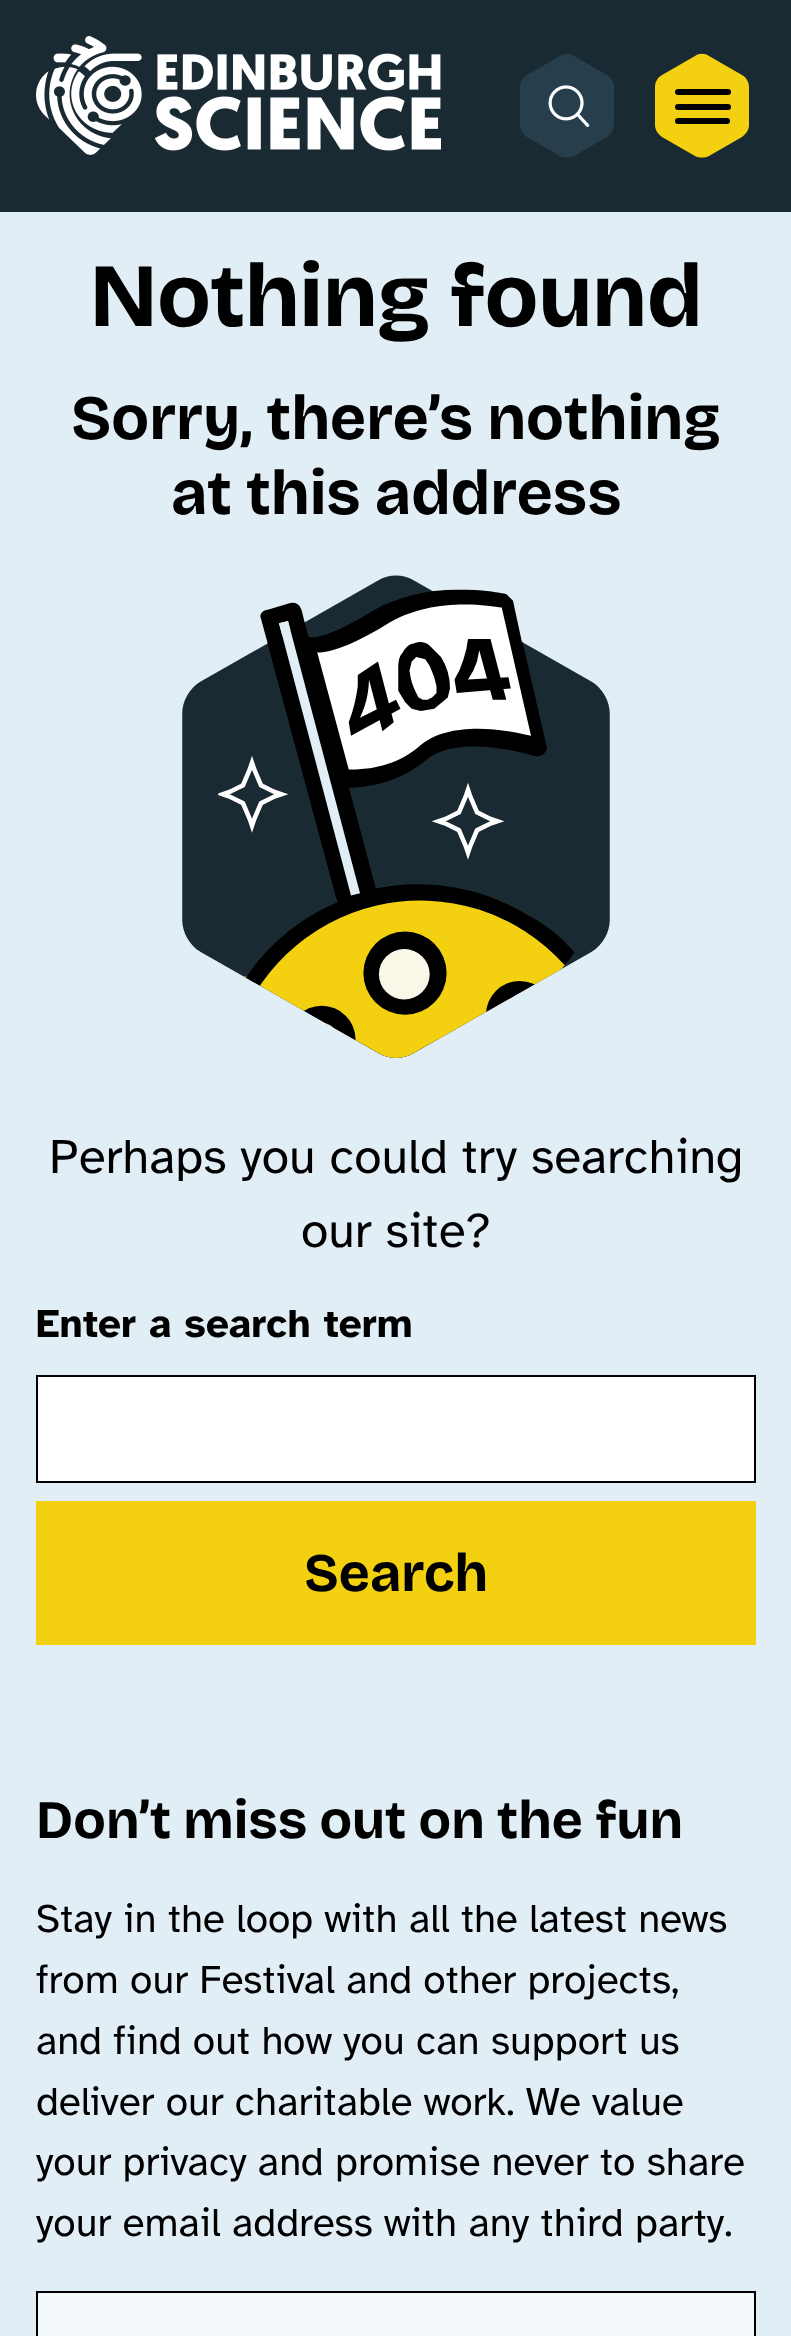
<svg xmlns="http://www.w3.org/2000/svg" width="791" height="2336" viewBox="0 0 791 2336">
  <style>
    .t1 { font: bold 90px Bricolage Grotesque; fill: #000; }
    .t2 { font: bold 63px 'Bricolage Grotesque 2'; fill: #000; }
    .t3 { font: 49.5px Atkinson Hyperlegible; fill: #000; }
    .t4 { font: bold 40.5px Atkinson Hyperlegible; fill: #000; }
    .t5 { font: bold 54px 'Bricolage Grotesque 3'; fill: #000; }
    .t6 { font: 40.5px Atkinson Hyperlegible; fill: #000; }
  </style>
  <rect width="100%" height="100%" fill="#1a2a33"/>
  <image x="36" y="36" width="405" height="119" href="images/1.png"/>
  <path d="M560 56C564 53 570 53 574 56L607 75C611 77 614 82 614 87V125C614 130 611 134 607 137L574 156C570 158 564 158 560 156L527 137C523 134 520 130 520 125V87C520 82 523 77 527 75Z" fill="#273f4c"/>
  <image x="548" y="85" width="42" height="42" href="images/2.png"/>
  <path d="M695 56C699 53 705 53 709 56L742 75C746 77 749 82 749 87V125C749 130 746 134 742 137L709 156C705 158 699 158 695 156L662 137C658 134 655 130 655 125V87C655 82 658 77 662 75Z" fill="#f3d010"/>
  <rect x="675" y="104" width="56" height="6" rx="3" fill="#000"/>
  <rect x="675" y="89" width="56" height="6" rx="3" fill="#000"/>
  <rect x="675" y="118" width="55" height="6" rx="3" fill="#000"/>
  <rect x="0" y="212" width="791" height="2124" fill="#e1eef5"/>
  <text x="90" y="326" class="t1">Nothing found</text>
  <text x="71" y="439" class="t2">Sorry, there’s nothing</text>
  <text x="171" y="514" class="t2">at this address</text>
  <image x="182" y="575" width="428" height="483" href="images/3.png"/>
  <text x="49" y="1173" class="t3">Perhaps you could try searching</text>
  <text x="301" y="1247" class="t3">our site?</text>
  <text x="36" y="1337" class="t4">Enter a search term</text>
  <rect x="37" y="1376" width="718" height="106" fill="#fff" stroke="#000" stroke-width="2"/>
  <rect x="36" y="1501" width="720" height="144" fill="#f3d010"/>
  <text x="304" y="1591" class="t5">Search</text>
  <text x="36" y="1838" class="t5">Don’t miss out on the fun</text>
  <text x="36" y="1932" class="t6">Stay in the loop with all the latest news</text>
  <text x="36" y="1993" class="t6">from our Festival and other projects,</text>
  <text x="36" y="2054" class="t6">and find out how you can support us</text>
  <text x="36" y="2115" class="t6">deliver our charitable work. We value</text>
  <text x="36" y="2175" class="t6">your privacy and promise never to share</text>
  <text x="36" y="2236" class="t6">your email address with any third party.</text>
  <rect x="37" y="2292" width="718" height="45" fill="#f4f9fc" stroke="#000" stroke-width="2"/>
</svg>
